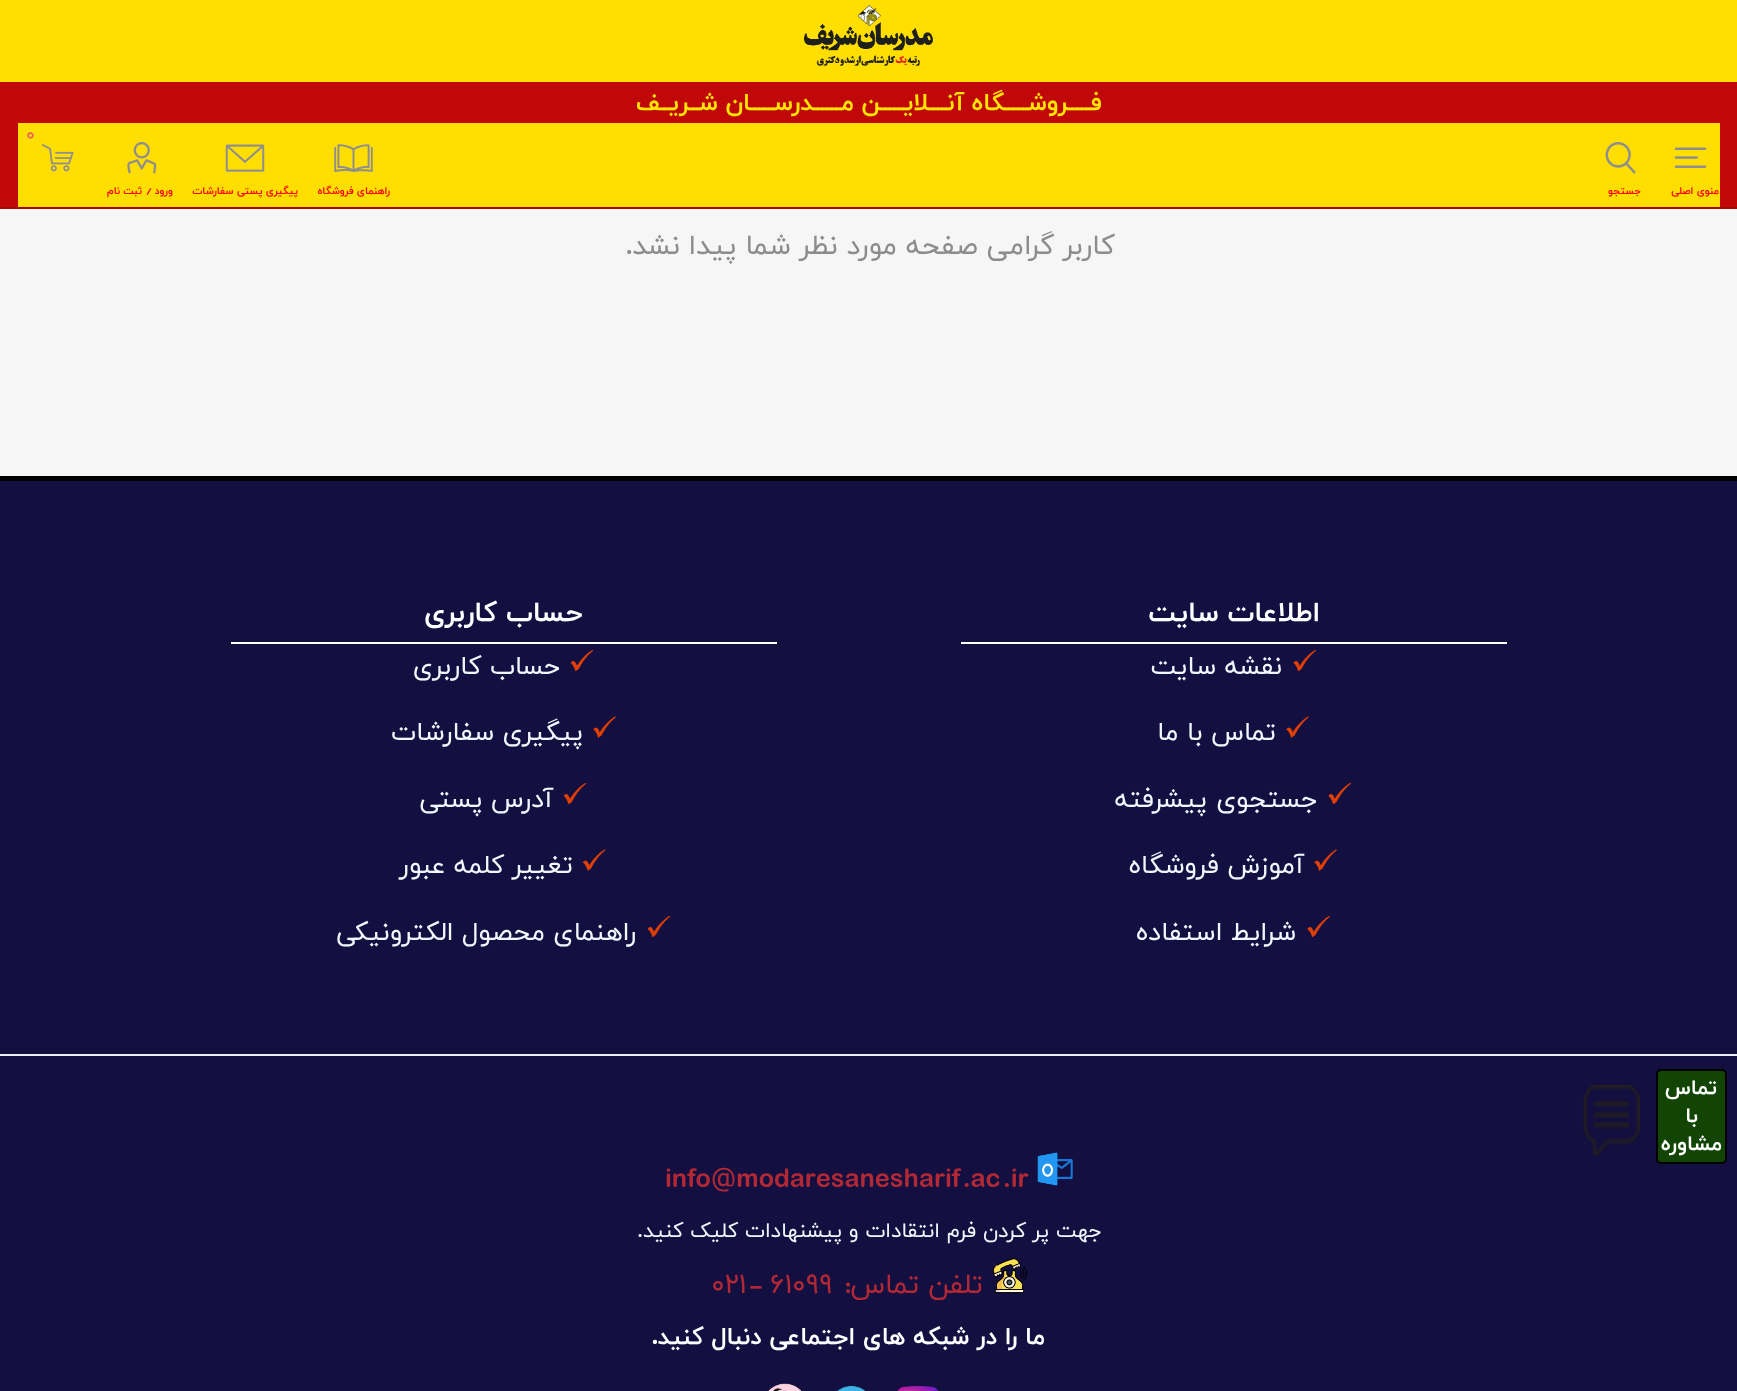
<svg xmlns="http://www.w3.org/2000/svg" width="1737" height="1391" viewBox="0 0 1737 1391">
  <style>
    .t1 { font: bold 24.5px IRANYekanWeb; direction: rtl; fill: #ffe500; }
    .t2 { font: 18px IRANYekanWeb; fill: #ef5661; }
    .t3 { font: bold 10.5px IRANYekanWeb; direction: rtl; fill: #f00; }
    .t4 { font: bold 10.5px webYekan; direction: rtl; fill: #f00; }
    .t5 { font: 28px IRANYekanWeb; direction: rtl; fill: #8c8c8c; }
    .t6 { font: 28px webYekan; direction: rtl; fill: #8c8c8c; }
    .t7 { font: bold 21px IRANYekanWeb; direction: rtl; fill: #fff; }
    .t8 { font: bold 28px IRANYekanWeb; direction: rtl; fill: #fff; }
    .t9 { font: 26.25px IRANYekanWeb; direction: rtl; fill: #f0f8ff; }
    .t10 { font: 28px webYekan; fill: #b22935; }
    .t11 { font: 21px IRANYekanWeb; direction: rtl; fill: #f0f8ff; }
    .t12 { font: 21px webYekan; direction: rtl; fill: #f0f8ff; }
    .t13 { font: 28px IRANYekanWeb; direction: rtl; fill: #b22935; }
    .t14 { font: 28px webYekan; direction: rtl; fill: #b22935; }
    .t15 { font: 28px IRANYekanWeb; fill: #b22935; }
    .t16 { font: bold 24.5px IRANYekanWeb; direction: rtl; fill: #fff; }
    .t17 { font: bold 24.5px webYekan; direction: rtl; fill: #fff; }
  </style>
  <rect width="100%" height="100%" fill="#f6f6f6"/>
  <rect x="0" y="82" width="1737" height="125" fill="#c00808"/>
  <rect x="0" y="207" width="1737" height="2" fill="#aa0707"/>
  <rect x="0" y="0" width="1737" height="82" fill="#ffde00"/>
  <image x="804" y="5" width="129" height="61" href="images/1.png"/>
  <text x="1102" y="110" class="t1">فـــــروشـــــگاه آنــــلایـــــن مــــــدرســـــان شــریــف</text>
  <rect x="18" y="123" width="1702" height="84" fill="#ffde00"/>
  <text x="26" y="140" class="t2">۰</text>
  <image x="42" y="144" width="32" height="28" href="images/2.png"/>
  <image x="1674" y="147" width="33" height="21" href="images/3.png"/>
  <text x="1719" y="194" class="t3">منوی اصلی</text>
  <image x="1605" y="142" width="31" height="32" href="images/4.png"/>
  <text x="1641" y="194" class="t3">جستجو</text>
  <image x="334" y="144" width="39" height="28" href="images/5.png"/>
  <text x="390" y="194" class="t3">راهنمای فروشگاه</text>
  <image x="225" y="144" width="40" height="28" href="images/6.png"/>
  <text x="298" y="194" class="t3">پیگیری پستی سفارشات</text>
  <image x="127" y="142" width="30" height="32" href="images/7.png"/>
  <text x="173" y="194" class="t3">ورود</text>
  <text x="151" y="194" class="t4">/</text>
  <text x="142" y="194" class="t3">ثبت نام</text>
  <text x="1115" y="254" class="t5">کاربر گرامی صفحه مورد نظر شما پیدا نشد</text>
  <text x="633" y="254" class="t6">.</text>
  <rect x="0" y="481" width="1737" height="910" fill="#130f40"/>
  <rect x="0" y="476" width="1737" height="5" fill="#000"/>
  <rect x="1657" y="1070" width="69" height="93" rx="4" fill="#124404" stroke="#000" stroke-width="2"/>
  <text x="1717" y="1094" class="t7">تماس</text>
  <text x="1698" y="1122" class="t7">با</text>
  <text x="1722" y="1150" class="t7">مشاوره</text>
  <image x="1583" y="1085" width="57" height="70" href="images/8.png"/>
  <rect x="961" y="642" width="546" height="2" fill="#fff"/>
  <text x="1320" y="621" class="t8">اطلاعات سایت</text>
  <image x="1293" y="649" width="24" height="23" href="images/9.png"/>
  <text x="1282" y="674" class="t9">نقشه سایت</text>
  <image x="1286" y="716" width="23" height="22" href="images/10.png"/>
  <text x="1276" y="740" class="t9">تماس با ما</text>
  <image x="1328" y="782" width="24" height="23" href="images/11.png"/>
  <text x="1318" y="807" class="t9">جستجوی</text>
  <text x="1207" y="807" class="t9">پیشرفته</text>
  <image x="1314" y="849" width="23" height="22" href="images/12.png"/>
  <text x="1304" y="873" class="t9">آموزش فروشگاه</text>
  <image x="1307" y="915" width="24" height="23" href="images/13.png"/>
  <text x="1296" y="940" class="t9">شرایط استفاده</text>
  <rect x="231" y="642" width="546" height="2" fill="#fff"/>
  <text x="583" y="621" class="t8">حساب کاربری</text>
  <image x="570" y="649" width="24" height="23" href="images/14.png"/>
  <text x="560" y="674" class="t9">حساب کاربری</text>
  <image x="593" y="716" width="23" height="22" href="images/12.png"/>
  <text x="583" y="740" class="t9">پیگیری سفارشات</text>
  <image x="563" y="782" width="24" height="23" href="images/15.png"/>
  <text x="553" y="807" class="t9">آدرس‌ پستی</text>
  <image x="582" y="849" width="24" height="22" href="images/16.png"/>
  <text x="573" y="873" class="t9">تغییر کلمه عبور</text>
  <image x="647" y="915" width="24" height="23" href="images/17.png"/>
  <text x="636" y="940" class="t9">راهنمای محصول الکترونیکی</text>
  <rect x="0" y="1054" width="1737" height="2" fill="#eee"/>
  <image x="1037" y="1152" width="36" height="34" href="images/18.png"/>
  <text x="665" y="1187" class="t10">info@modaresanesharif.ac.ir</text>
  <text x="1102" y="1237" class="t11">جهت پر کردن فرم انتقادات و پیشنهادات کلیک کنید</text>
  <text x="643" y="1237" class="t12">.</text>
  <image x="992" y="1258" width="36" height="36" href="images/19.png"/>
  <text x="983" y="1293" class="t13">تلفن تماس</text>
  <text x="850" y="1293" class="t14">:</text>
  <text x="770" y="1293" class="t15">۶۱۰۹۹</text>
  <text x="746" y="1293" class="t10">-</text>
  <text x="711" y="1293" class="t15">۰۲۱</text>
  <text x="1045" y="1344" class="t16">ما را در شبکه های اجتماعی دنبال کنید</text>
  <text x="658" y="1344" class="t17">.</text>
  <image x="897" y="1386" width="42" height="5" href="images/20.png"/>
  <image x="837" y="1386" width="29" height="5" href="images/21.png"/>
  <image x="768" y="1383" width="34" height="8" href="images/22.png"/>
</svg>
